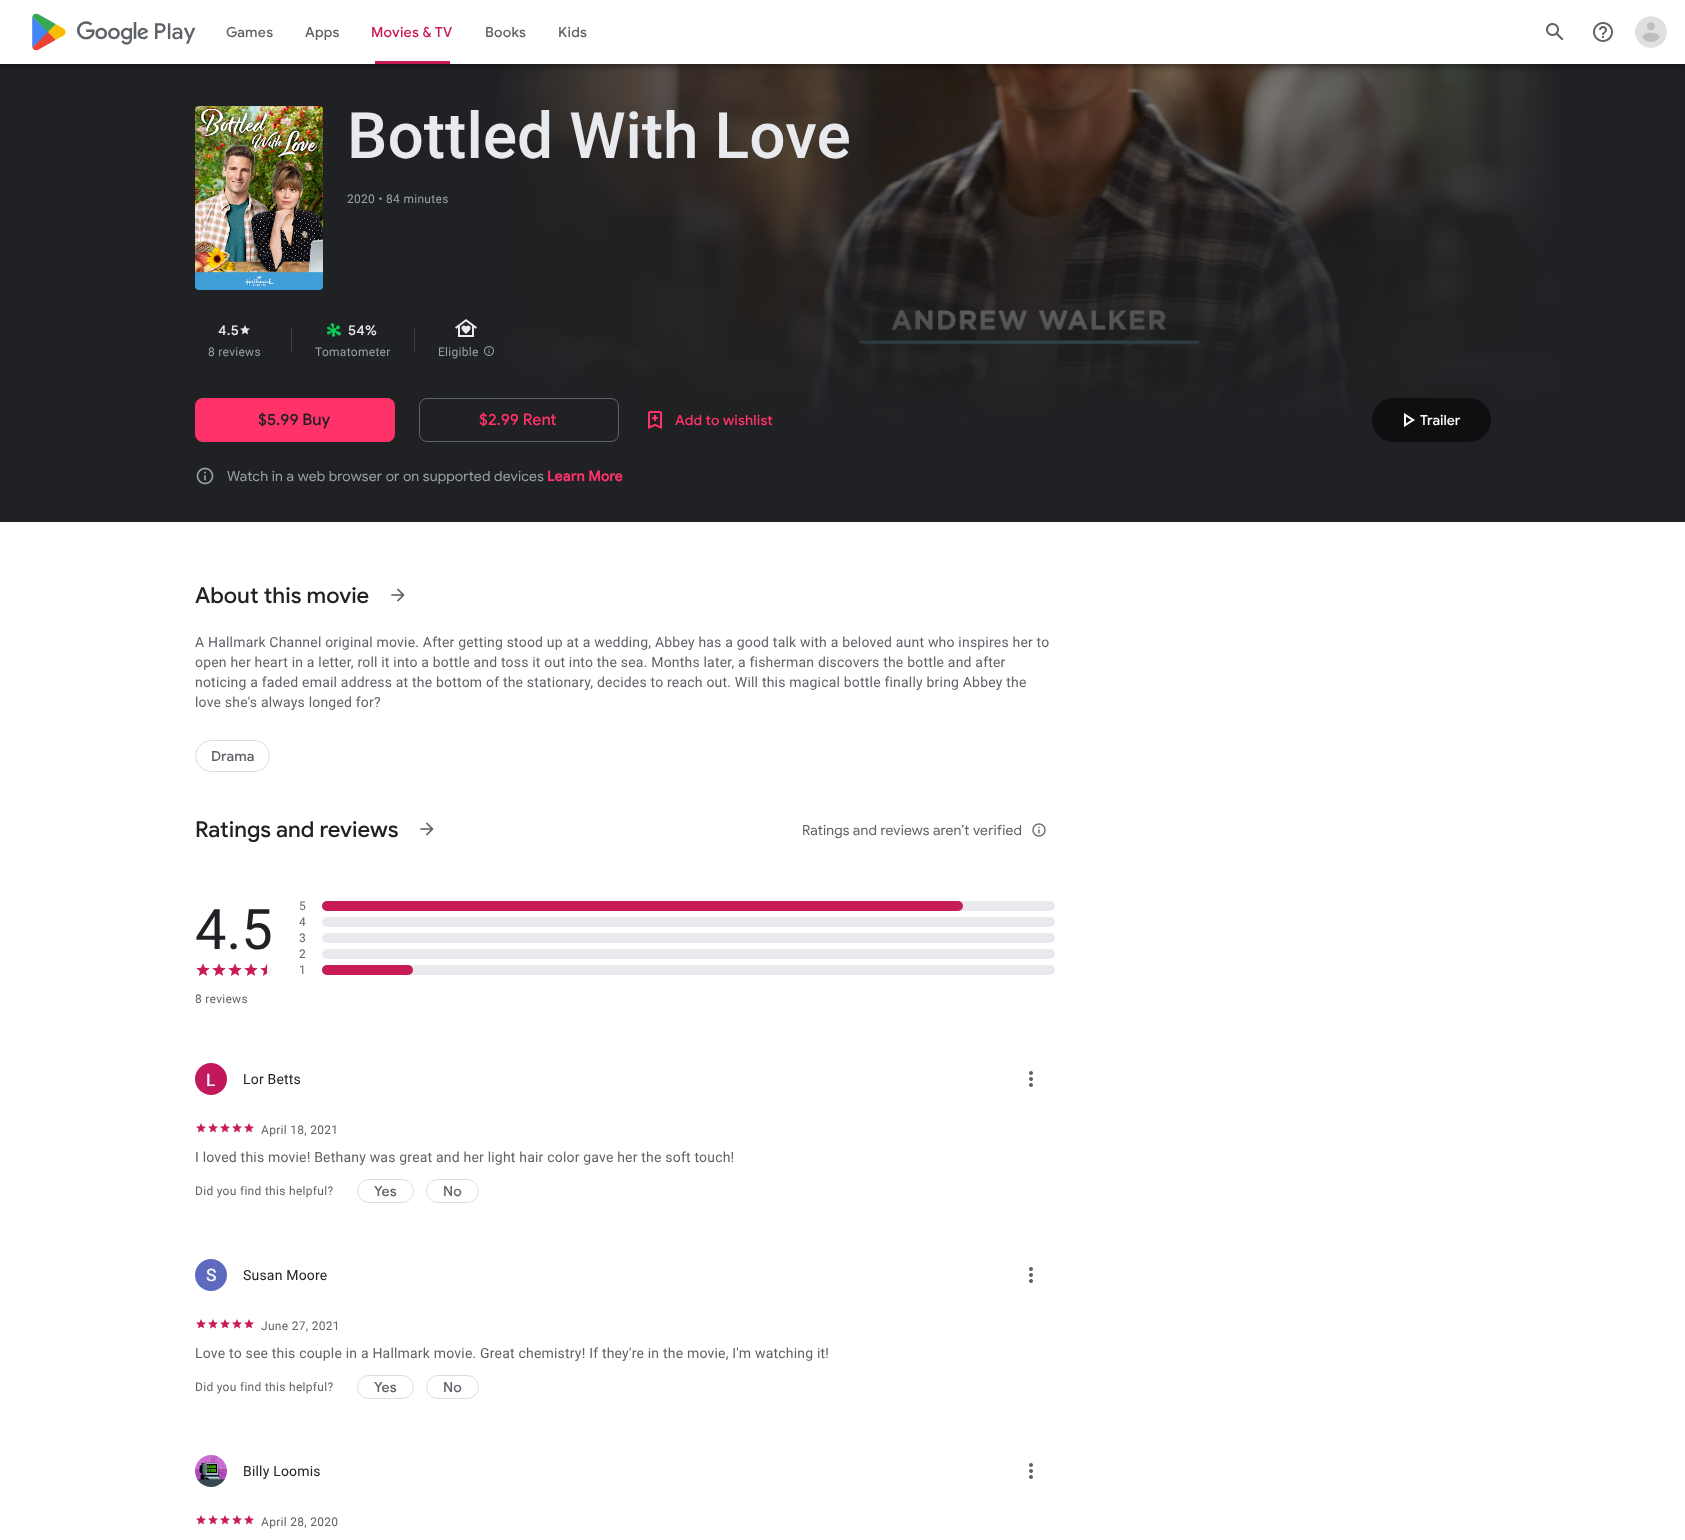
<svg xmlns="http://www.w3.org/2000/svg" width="1685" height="1540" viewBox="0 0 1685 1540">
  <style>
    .t1 { font: 500 22px Google Sans; fill: #5f6368; }
    .t2 { font: 500 14px Google Sans; letter-spacing: 0.25px; fill: #5f6368; }
    .t3 { font: 500 14px Google Sans; letter-spacing: 0.25px; fill: #c71c56; }
    .t4 { font: 500 64px Roboto; fill: #e8eaed; }
    .t5 { font: 12px Roboto; letter-spacing: 0.3px; fill: #9aa0a6; }
    .t6 { font: 500 14px Google Sans; letter-spacing: 0.25px; fill: #e8eaed; }
    .t7 { font: 500 16px Google Sans; fill: #202124; }
    .t8 { font: 500 16px Google Sans; fill: #ff3369; }
    .t9 { font: 500 14px Google Sans; letter-spacing: 0.15px; fill: #ff3369; }
    .t10 { font: 500 14px Google Sans; fill: #fff; }
    .t11 { font: 14px Google Sans; letter-spacing: 0.2px; fill: #9aa0a6; }
    .t12 { font: bold 14px Google Sans; letter-spacing: 0.2px; fill: #ff3369; }
    .t13 { font: 500 22px Google Sans; fill: #202124; }
    .t14 { font: 14px Roboto; letter-spacing: 0.2px; fill: #5f6368; }
    .t15 { font: 500 14px Google Sans; letter-spacing: 0.15px; fill: #5f6368; }
    .t16 { font: 14px Google Sans; letter-spacing: 0.15px; fill: #5f6368; }
    .t17 { font: 56px Roboto; fill: #202124; }
    .t18 { font: 12px Roboto; letter-spacing: 0.3px; fill: #5f6368; }
    .t19 { font: 14px Roboto; letter-spacing: 0.2px; fill: #202124; }
  </style>
  <defs>
    <linearGradient id="g1" gradientUnits="userSpaceOnUse" x1="1563" y1="126" x2="496" y2="126"><stop offset="0" stop-color="#202124"/><stop offset="0.56" stop-color="#202124" stop-opacity="0"/></linearGradient>
    <linearGradient id="g2" gradientUnits="userSpaceOnUse" x1="1030" y1="426" x2="1030" y2="-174"><stop offset="0" stop-color="#202124"/><stop offset="0.56" stop-color="#202124" stop-opacity="0"/></linearGradient>
    <linearGradient id="g3" gradientUnits="userSpaceOnUse" x1="496" y1="126" x2="1563" y2="126"><stop offset="0" stop-color="#202124"/><stop offset="0.56" stop-color="#202124" stop-opacity="0"/></linearGradient>
  </defs>
  <rect width="100%" height="100%" fill="#fff"/>
  <rect x="0" y="64" width="1685" height="458" fill="#202124"/>
  <image x="500" y="64" width="1059" height="360" href="images/5.png"/>
  <rect x="978" y="64" width="581" height="360" fill="url(#g1)"/>
  <rect x="500" y="97" width="1057" height="327" fill="url(#g2)"/>
  <rect x="500" y="64" width="571" height="348" fill="url(#g3)"/>
  <rect x="1" y="3" width="1683" height="62" fill="#00000033" filter="blur(2px)"/>
  <rect x="0" y="1" width="1685" height="64" fill="#0000001f" filter="blur(5px)"/>
  <rect x="0" y="4" width="1685" height="64" fill="#00000024" filter="blur(2.5px)"/>
  <rect x="0" y="0" width="1685" height="64" fill="#fff"/>
  <image x="32" y="13" width="34" height="38" href="images/1.png"/>
  <text x="76" y="39" class="t1">google_logo Play</text>
  <text x="226" y="37" class="t2">Games</text>
  <text x="305" y="37" class="t2">Apps</text>
  <text x="371" y="37" class="t3">Movies &amp; TV</text>
  <rect x="375" y="61" width="75" height="3" fill="#c71c56"/>
  <text x="485" y="37" class="t2">Books</text>
  <text x="558" y="37" class="t2">Kids</text>
  <image x="1546" y="23" width="18" height="18" href="images/2.png"/>
  <image x="1593" y="22" width="20" height="20" href="images/3.png"/>
  <image x="1635" y="16" width="32" height="32" href="images/4.png"/>
  <image x="195" y="106" width="128" height="184" href="images/6.png"/>
  <text x="347" y="158" class="t4">Bottled With Love</text>
  <text x="347" y="203" class="t5">2020 • 84 minutes</text>
  <text x="218" y="335" class="t6">4.5</text>
  <image x="240" y="325" width="10" height="10" href="images/7.png"/>
  <text x="208" y="356" class="t5">8 reviews</text>
  <rect x="291" y="328" width="1" height="24" fill="#3c4043"/>
  <image x="327" y="323" width="14" height="14" href="images/8.png"/>
  <text x="348" y="335" class="t6">54%</text>
  <text x="315" y="356" class="t5">Tomatometer</text>
  <rect x="414" y="328" width="1" height="24" fill="#3c4043"/>
  <image x="455" y="319" width="22" height="18" href="images/9.png"/>
  <text x="438" y="356" class="t5">Eligible</text>
  <image x="484" y="346" width="10" height="10" href="images/10.png"/>
  <rect x="195" y="398" width="200" height="44" rx="8" fill="#ff3369"/>
  <text x="258" y="425" class="t7">$5.99 Buy</text>
  <rect x="419.5" y="398.5" width="199" height="43" rx="7.5" fill="none" stroke="#5f6368"/>
  <text x="479" y="425" class="t8">$2.99 Rent</text>
  <image x="648" y="411" width="14" height="18" href="images/11.png"/>
  <text x="675" y="425" class="t9">Add to wishlist</text>
  <rect x="1372" y="398" width="119" height="44" rx="22" fill="#0f0f11"/>
  <image x="1404" y="413" width="11" height="14" href="images/12.png"/>
  <text x="1420" y="425" class="t10">Trailer</text>
  <image x="196" y="467" width="18" height="18" href="images/13.png"/>
  <text x="227" y="481" class="t11">Watch in a web browser or on supported devices</text>
  <text x="547" y="481" class="t12">Learn More</text>
  <text x="195" y="603" class="t13">About this movie</text>
  <image x="391" y="588" width="14" height="14" href="images/14.png"/>
  <text x="195" y="647" class="t14">A Hallmark Channel original movie. After getting stood up at a wedding, Abbey has a good talk with a beloved aunt who inspires her to</text>
  <text x="195" y="667" class="t14">open her heart in a letter, roll it into a bottle and toss it out into the sea. Months later, a fisherman discovers the bottle and after</text>
  <text x="195" y="687" class="t14">noticing a faded email address at the bottom of the stationary, decides to reach out. Will this magical bottle finally bring Abbey the</text>
  <text x="195" y="707" class="t14">love she's always longed for?</text>
  <rect x="195.5" y="740.5" width="74" height="31" rx="15.5" fill="none" stroke="#dadce0"/>
  <text x="211" y="761" class="t15">Drama</text>
  <text x="195" y="837" class="t13">Ratings and reviews</text>
  <image x="420" y="822" width="14" height="14" href="images/14.png"/>
  <text x="802" y="835" class="t16">Ratings and reviews aren’t verified</text>
  <image x="1032" y="823" width="14" height="14" href="images/15.png"/>
  <text x="195" y="949" class="t17">4.5</text>
  <image x="196" y="963" width="14" height="13" href="images/16.png"/>
  <image x="212" y="963" width="14" height="13" href="images/16.png"/>
  <image x="228" y="963" width="14" height="13" href="images/16.png"/>
  <image x="244" y="963" width="14" height="13" href="images/16.png"/>
  <image x="260" y="963" width="13" height="13" href="images/17.png"/>
  <text x="195" y="1003" class="t18">8 reviews</text>
  <text x="299" y="910" class="t18">5</text>
  <rect x="322" y="901" width="733" height="10" rx="5" fill="#e8eaed"/>
  <rect x="322" y="901" width="641" height="10" rx="5" fill="#c71c56"/>
  <text x="299" y="926" class="t18">4</text>
  <rect x="322" y="917" width="733" height="10" rx="5" fill="#e8eaed"/>
  <text x="299" y="942" class="t18">3</text>
  <rect x="322" y="933" width="733" height="10" rx="5" fill="#e8eaed"/>
  <text x="299" y="958" class="t18">2</text>
  <rect x="322" y="949" width="733" height="10" rx="5" fill="#e8eaed"/>
  <text x="299" y="974" class="t18">1</text>
  <rect x="322" y="965" width="733" height="10" rx="5" fill="#e8eaed"/>
  <rect x="322" y="965" width="91" height="10" rx="5" fill="#c71c56"/>
  <image x="195" y="1063" width="32" height="32" href="images/18.png"/>
  <text x="243" y="1084" class="t19">Lor Betts</text>
  <image x="1029" y="1071" width="4" height="16" href="images/19.png"/>
  <image x="196" y="1123" width="10" height="10" href="images/20.png"/>
  <image x="208" y="1123" width="10" height="10" href="images/20.png"/>
  <image x="220" y="1123" width="10" height="10" href="images/20.png"/>
  <image x="232" y="1123" width="10" height="10" href="images/20.png"/>
  <image x="244" y="1123" width="10" height="10" href="images/20.png"/>
  <text x="261" y="1134" class="t18">April 18, 2021</text>
  <text x="195" y="1162" class="t14">I loved this movie! Bethany was great and her light hair color gave her the soft touch!</text>
  <text x="195" y="1195" class="t18">Did you find this helpful?</text>
  <rect x="357.5" y="1179.5" width="56" height="23" rx="11.5" fill="none" stroke="#dadce0"/>
  <text x="374" y="1196" class="t2">Yes</text>
  <rect x="426.5" y="1179.5" width="52" height="23" rx="11.5" fill="none" stroke="#dadce0"/>
  <text x="443" y="1196" class="t2">No</text>
  <image x="195" y="1259" width="32" height="32" href="images/21.png"/>
  <text x="243" y="1280" class="t19">Susan Moore</text>
  <image x="1029" y="1267" width="4" height="16" href="images/19.png"/>
  <image x="196" y="1319" width="10" height="10" href="images/20.png"/>
  <image x="208" y="1319" width="10" height="10" href="images/20.png"/>
  <image x="220" y="1319" width="10" height="10" href="images/20.png"/>
  <image x="232" y="1319" width="10" height="10" href="images/20.png"/>
  <image x="244" y="1319" width="10" height="10" href="images/20.png"/>
  <text x="261" y="1330" class="t18">June 27, 2021</text>
  <text x="195" y="1358" class="t14">Love to see this couple in a Hallmark movie. Great chemistry! If they're in the movie, I'm watching it!</text>
  <text x="195" y="1391" class="t18">Did you find this helpful?</text>
  <rect x="357.5" y="1375.5" width="56" height="23" rx="11.5" fill="none" stroke="#dadce0"/>
  <text x="374" y="1392" class="t2">Yes</text>
  <rect x="426.5" y="1375.5" width="52" height="23" rx="11.5" fill="none" stroke="#dadce0"/>
  <text x="443" y="1392" class="t2">No</text>
  <image x="195" y="1455" width="32" height="32" href="images/22.png"/>
  <text x="243" y="1476" class="t19">Billy Loomis</text>
  <image x="1029" y="1463" width="4" height="16" href="images/19.png"/>
  <image x="196" y="1515" width="10" height="10" href="images/20.png"/>
  <image x="208" y="1515" width="10" height="10" href="images/20.png"/>
  <image x="220" y="1515" width="10" height="10" href="images/20.png"/>
  <image x="232" y="1515" width="10" height="10" href="images/20.png"/>
  <image x="244" y="1515" width="10" height="10" href="images/20.png"/>
  <text x="261" y="1526" class="t18">April 28, 2020</text>
</svg>
